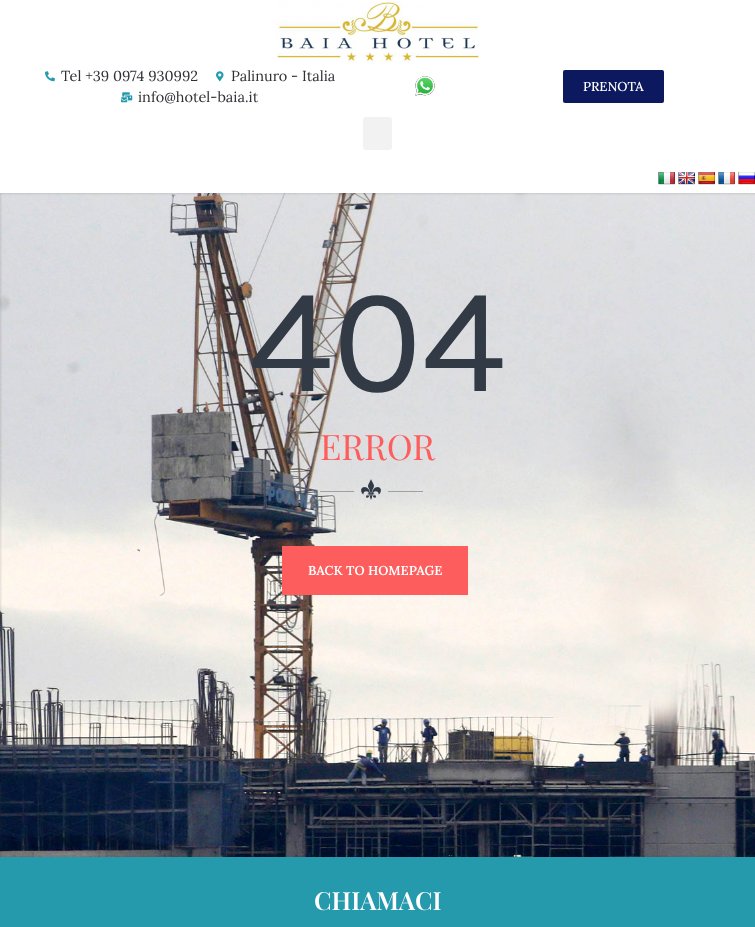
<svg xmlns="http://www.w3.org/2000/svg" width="755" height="927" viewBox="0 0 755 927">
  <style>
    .t1 { font: 14.5px Lora; fill: #2f3135; }
    .t2 { font: 500 13px Lora; fill: #fff; }
    .t3 { font: 150px Karla; fill: #313a45; }
    .t4 { font: 35px Playfair Display; fill: #fe5d5d; }
    .t5 { font: 600 13px Lora; fill: #fff; }
    .t6 { font: 600 25px Playfair Display; fill: #fff; }
  </style>
  <rect width="100%" height="100%" fill="#fff"/>
  <image x="276" y="2" width="203" height="61" href="images/1.png"/>
  <image x="45" y="71" width="10" height="11" href="images/2.png"/>
  <text x="61" y="81" class="t1">Tel +39 0974 930992</text>
  <image x="216" y="71" width="8" height="11" href="images/3.png"/>
  <text x="231" y="81" class="t1">Palinuro - Italia</text>
  <image x="121" y="92" width="12" height="11" href="images/4.png"/>
  <text x="138" y="102" class="t1">info@hotel-baia.it</text>
  <image x="415" y="76" width="20" height="20" href="images/5.png"/>
  <rect x="563" y="70" width="101" height="33" rx="2" fill="#0c195f"/>
  <text x="583" y="91" class="t2">PRENOTA</text>
  <rect x="363" y="117" width="29" height="33" rx="3" fill="#f2f2f2"/>
  <image x="658" y="172" width="17" height="13" href="images/6.png"/>
  <image x="678" y="172" width="17" height="13" href="images/7.png"/>
  <image x="698" y="172" width="17" height="13" href="images/8.png"/>
  <image x="718" y="172" width="17" height="13" href="images/9.png"/>
  <image x="738" y="172" width="17" height="13" href="images/10.png"/>
  <image x="0" y="193" width="755" height="664" href="images/11.png"/>
  <text x="249" y="391" class="t3">404</text>
  <text x="320" y="460" class="t4">ERROR</text>
  <image x="320" y="479" width="103" height="21" href="images/12.png"/>
  <rect x="282" y="546" width="186" height="49" fill="#fe5d5d"/>
  <text x="308" y="575" class="t5">BACK TO HOMEPAGE</text>
  <rect x="0" y="857" width="755" height="70" fill="#259aad"/>
  <text x="314" y="910" class="t6">CHIAMACI</text>
</svg>
